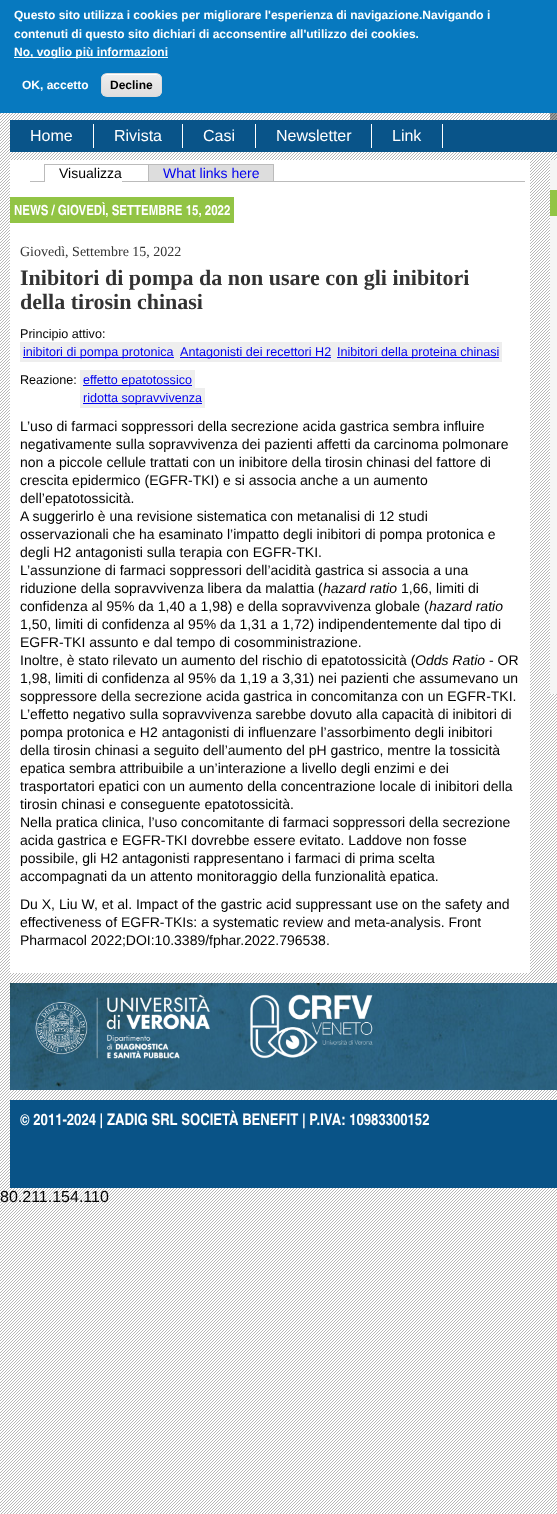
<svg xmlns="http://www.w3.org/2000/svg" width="557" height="1514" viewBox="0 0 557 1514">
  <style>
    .t1 { font: bold 12px Liberation Sans; fill: #fff; }
    .t2 { font: bold 12px Liberation Sans; fill: #000; }
    .t3 { font: 16px Liberation Sans; fill: #fff; }
    .t4 { font: 14px Liberation Sans; fill: #000; }
    .t5 { font: 14px Liberation Sans; fill: #00e; }
    .t6 { font: bold 14px TeX Gyre Heros Cn; fill: #fff; }
    .t7 { font: 14px Liberation Serif; fill: #333; }
    .t8 { font: bold 22px Liberation Serif; fill: #333; }
    .t9 { font: 12.6px Liberation Sans; fill: #000; }
    .t10 { font: 12.6px Liberation Sans; fill: #00e; }
    .t11 { font: italic 14px Liberation Sans; fill: #000; }
    .t12 { font: bold 16px TeX Gyre Heros Cn; fill: #fff; }
    .t13 { font: 16px Liberation Sans; fill: #000; }
  </style>
  <defs>
    <clipPath id="clip1"><rect x="101" y="73" width="61" height="24" rx="6"/></clipPath>
    <linearGradient id="g1" gradientUnits="userSpaceOnUse" x1="132" y1="74" x2="132" y2="96"><stop offset="0.05" stop-color="#ededed"/><stop offset="1" stop-color="#dfdfdf"/></linearGradient>
  </defs>
  <rect width="100%" height="100%" fill="#fff"/>
  <image x="0" y="113" width="557" height="1401" href="images/1.png"/>
  <rect x="0" y="0" width="557" height="113" fill="#0779bf"/>
  <text x="14" y="19" class="t1">Questo sito utilizza i cookies per migliorare l'esperienza di navigazione.Navigando i</text>
  <text x="14" y="38" class="t1">contenuti di questo sito dichiari di acconsentire all'utilizzo dei cookies.</text>
  <rect x="14" y="57" width="154" height="1" fill="#fff"/>
  <text x="14" y="56" class="t1">No, voglio più informazioni</text>
  <text x="22" y="89" class="t1">OK, accetto</text>
  <g clip-path="url(#clip1)">
    <rect x="101" y="74" width="61" height="22" fill="url(#g1)"/>
  </g>
  <path d="M107 75H156C159 75 161 77 161 80C161 72 154 74 148 74H115C109 74 102 72 102 80C102 77 104 75 107 75Z" fill="#fff"/>
  <rect x="101.5" y="73.5" width="60" height="23" rx="5.5" fill="none" stroke="#dcdcdc"/>
  <text x="110" y="89" class="t2">Decline</text>
  <rect x="550" y="113" width="7" height="7" fill="#00000066"/>
  <rect x="10" y="120" width="547" height="32" fill="#095489"/>
  <rect x="93" y="124" width="1" height="24" fill="#fff"/>
  <text x="30" y="141" class="t3">Home</text>
  <rect x="182" y="124" width="1" height="24" fill="#fff"/>
  <text x="114" y="141" class="t3">Rivista</text>
  <rect x="255" y="124" width="1" height="24" fill="#fff"/>
  <text x="203" y="141" class="t3">Casi</text>
  <rect x="371" y="124" width="1" height="24" fill="#fff"/>
  <text x="276" y="141" class="t3">Newsletter</text>
  <rect x="442" y="124" width="1" height="24" fill="#fff"/>
  <text x="392" y="141" class="t3">Link</text>
  <rect x="10" y="160" width="520" height="813" fill="#fff"/>
  <rect x="30" y="181" width="495" height="1" fill="#bbb"/>
  <text x="59" y="178" class="t4">Visualizza</text>
  <rect x="45" y="181" width="77" height="1" fill="#fff"/>
  <rect x="44" y="164" width="230" height="1" fill="#bbb"/>
  <rect x="44" y="164" width="1" height="18" fill="#bbb"/>
  <rect x="149" y="165" width="124" height="16" fill="#ddd"/>
  <text x="163" y="178" class="t5">What links here</text>
  <rect x="273" y="164" width="1" height="17" fill="#bbb"/>
  <rect x="148" y="164" width="1" height="17" fill="#bbb"/>
  <rect x="10" y="197" width="224" height="26" fill="#92c445"/>
  <text x="14" y="215" class="t6">NEWS / GIOVEDÌ, SETTEMBRE 15, 2022</text>
  <text x="20" y="256" class="t7">Giovedì, Settembre 15, 2022</text>
  <text x="20" y="285" class="t8">Inibitori di pompa da non usare con gli inibitori</text>
  <text x="20" y="309" class="t8">della tirosin chinasi</text>
  <text x="20" y="338" class="t9">Principio attivo:</text>
  <rect x="20" y="342" width="482" height="20" fill="#eee"/>
  <rect x="23" y="357" width="151" height="1" fill="#00e"/>
  <text x="23" y="356" class="t10">inibitori di pompa protonica</text>
  <rect x="180" y="357" width="151" height="1" fill="#00e"/>
  <text x="180" y="356" class="t10">Antagonisti dei recettori H2</text>
  <rect x="337" y="357" width="162" height="1" fill="#00e"/>
  <text x="337" y="356" class="t10">Inibitori della proteina chinasi</text>
  <text x="20" y="384" class="t9">Reazione:</text>
  <rect x="80" y="370" width="115" height="18" fill="#eee"/>
  <rect x="83" y="385" width="109" height="1" fill="#00e"/>
  <text x="83" y="384" class="t10">effetto epatotossico</text>
  <rect x="80" y="388" width="125" height="20" fill="#eee"/>
  <rect x="83" y="403" width="119" height="1" fill="#00e"/>
  <text x="83" y="402" class="t10">ridotta sopravvivenza</text>
  <text x="20" y="431" class="t4">L’uso di farmaci soppressori della secrezione acida gastrica sembra influire</text>
  <text x="20" y="449" class="t4">negativamente sulla sopravvivenza dei pazienti affetti da carcinoma polmonare</text>
  <text x="20" y="467" class="t4">non a piccole cellule trattati con un inibitore della tirosin chinasi del fattore di</text>
  <text x="20" y="485" class="t4">crescita epidermico (EGFR-TKI) e si associa anche a un aumento</text>
  <text x="20" y="503" class="t4">dell’epatotossicità.</text>
  <text x="20" y="521" class="t4">A suggerirlo è una revisione sistematica con metanalisi di 12 studi</text>
  <text x="20" y="539" class="t4">osservazionali che ha esaminato l’impatto degli inibitori di pompa protonica e</text>
  <text x="20" y="557" class="t4">degli H2 antagonisti sulla terapia con EGFR-TKI.</text>
  <text x="20" y="575" class="t4">L’assunzione di farmaci soppressori dell’acidità gastrica si associa a una</text>
  <text x="20" y="593" class="t4">riduzione della sopravvivenza libera da malattia (</text>
  <text x="323" y="593" class="t11">hazard ratio</text>
  <text x="401" y="593" class="t4">1,66, limiti di</text>
  <text x="20" y="611" class="t4">confidenza al 95% da 1,40 a 1,98) e della sopravvivenza globale (</text>
  <text x="429" y="611" class="t11">hazard ratio</text>
  <text x="20" y="629" class="t4">1,50, limiti di confidenza al 95% da 1,31 a 1,72) indipendentemente dal tipo di</text>
  <text x="20" y="647" class="t4">EGFR-TKI assunto e dal tempo di cosomministrazione.</text>
  <text x="20" y="665" class="t4">Inoltre, è stato rilevato un aumento del rischio di epatotossicità (</text>
  <text x="415" y="665" class="t11">Odds Ratio</text>
  <text x="489" y="665" class="t4">- OR</text>
  <text x="20" y="683" class="t4">1,98, limiti di confidenza al 95% da 1,19 a 3,31) nei pazienti che assumevano un</text>
  <text x="20" y="701" class="t4">soppressore della secrezione acida gastrica in concomitanza con un EGFR-TKI.</text>
  <text x="20" y="719" class="t4">L’effetto negativo sulla sopravvivenza sarebbe dovuto alla capacità di inibitori di</text>
  <text x="20" y="737" class="t4">pompa protonica e H2 antagonisti di influenzare l’assorbimento degli inibitori</text>
  <text x="20" y="755" class="t4">della tirosin chinasi a seguito dell’aumento del pH gastrico, mentre la tossicità</text>
  <text x="20" y="773" class="t4">epatica sembra attribuibile a un’interazione a livello degli enzimi e dei</text>
  <text x="20" y="791" class="t4">trasportatori epatici con un aumento della concentrazione locale di inibitori della</text>
  <text x="20" y="809" class="t4">tirosin chinasi e conseguente epatotossicità.</text>
  <text x="20" y="827" class="t4">Nella pratica clinica, l’uso concomitante di farmaci soppressori della secrezione</text>
  <text x="20" y="845" class="t4">acida gastrica e EGFR-TKI dovrebbe essere evitato. Laddove non fosse</text>
  <text x="20" y="863" class="t4">possibile, gli H2 antagonisti rappresentano i farmaci di prima scelta</text>
  <text x="20" y="881" class="t4">accompagnati da un attento monitoraggio della funzionalità epatica.</text>
  <text x="20" y="909" class="t4">Du X, Liu W, et al. Impact of the gastric acid suppressant use on the safety and</text>
  <text x="20" y="927" class="t4">effectiveness of EGFR-TKIs: a systematic review and meta-analysis. Front</text>
  <text x="20" y="945" class="t4">Pharmacol 2022;DOI:10.3389/fphar.2022.796538.</text>
  <rect x="550" y="160" width="7" height="534" fill="#f5f5f5"/>
  <rect x="550" y="190" width="7" height="26" fill="#92c445"/>
  <image x="10" y="983" width="547" height="107" href="images/2.png"/>
  <image x="35" y="994" width="338" height="65" href="images/3.png"/>
  <rect x="10" y="1100" width="547" height="88" fill="#095387"/>
  <text x="20" y="1125" class="t12">© 2011-2024 | ZADIG SRL SOCIETÀ BENEFIT | P.IVA: 10983300152</text>
  <text x="0" y="1202" class="t13">80.211.154.110</text>
</svg>
